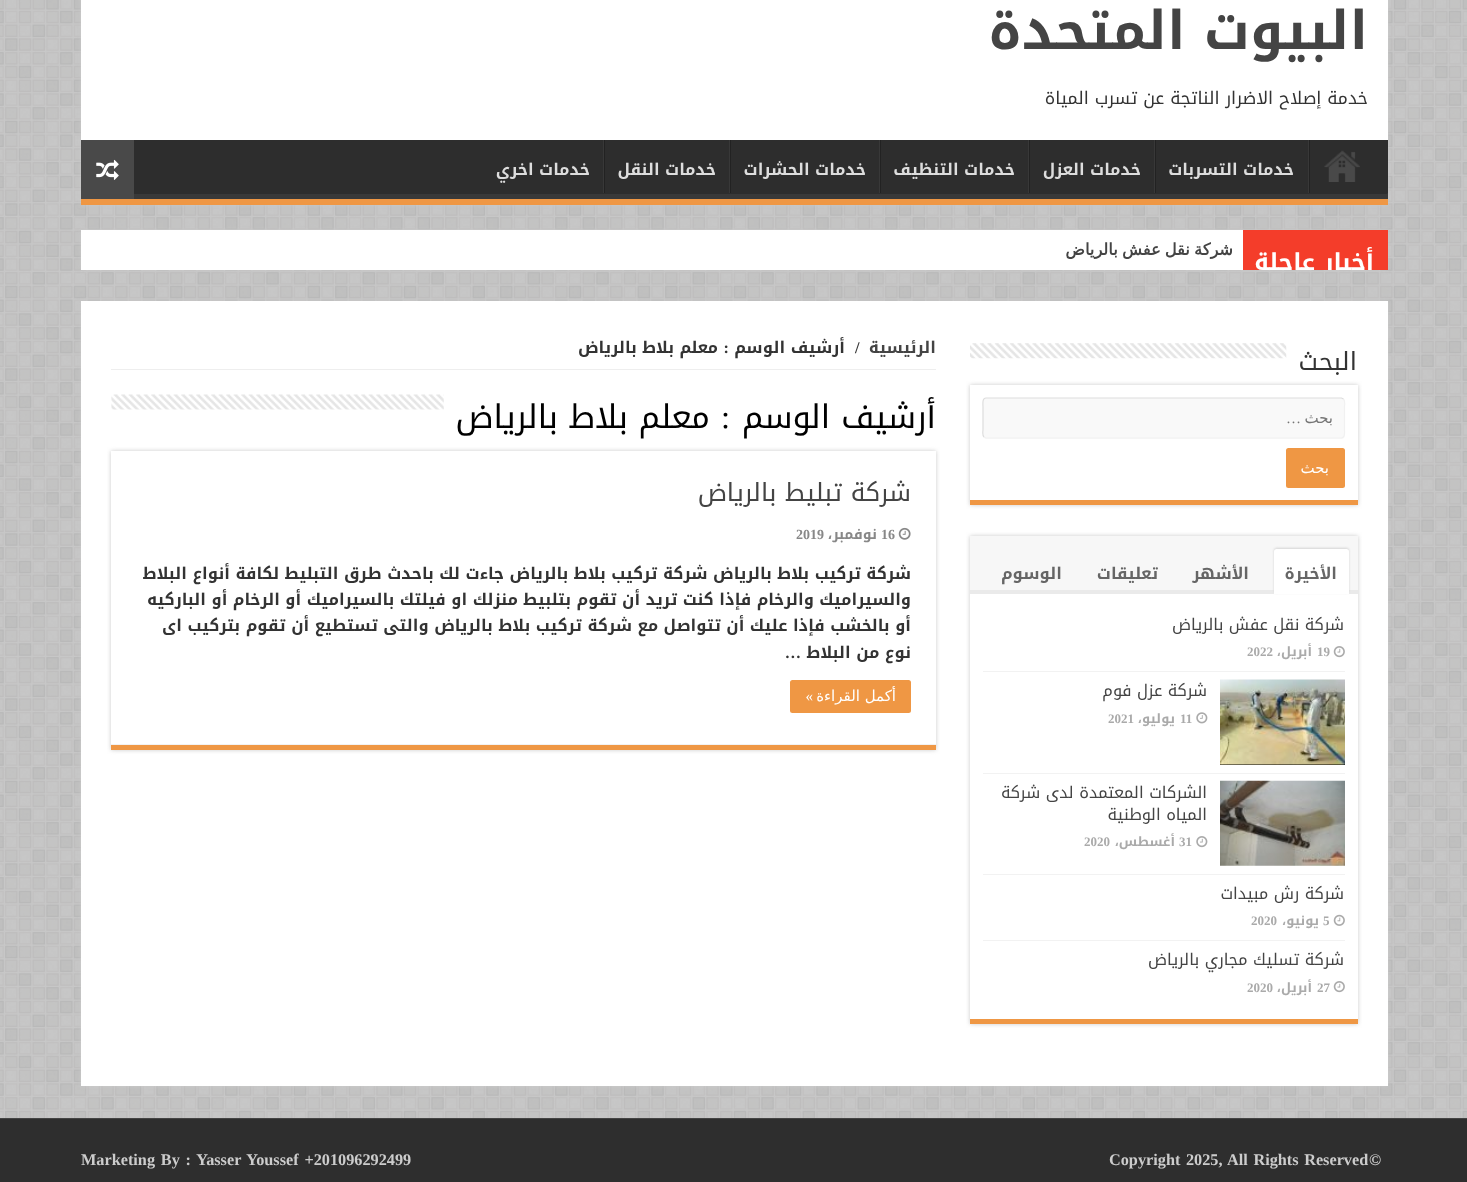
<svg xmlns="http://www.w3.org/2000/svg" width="1467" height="1182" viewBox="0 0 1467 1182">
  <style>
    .t1 { font: bold 53.25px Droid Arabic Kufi; direction: rtl; fill: #444; }
    .t2 { font: 17.5px Droid Arabic Kufi; direction: rtl; fill: #333; }
    .t3 { font: bold 16.25px Droid Arabic Kufi; direction: rtl; fill: #ddd; }
    .t4 { font: bold 23.5px Droid Arabic Kufi; direction: rtl; fill: #fff; }
    .t5 { font: bold 16.25px DejaVu Sans; direction: rtl; fill: #444; }
    .t6 { font: 25px Droid Arabic Kufi; direction: rtl; fill: #333; }
    .t7 { font: 15px DejaVu Sans; direction: rtl; fill: #757575; }
    .t8 { font: 15px Liberation Serif; direction: rtl; fill: #757575; }
    .t9 { font: 15px DejaVu Sans; direction: rtl; fill: #fff; }
    .t10 { font: bold 16.25px Droid Arabic Kufi; direction: rtl; fill: #666; }
    .t11 { font: 16.25px Droid Arabic Kufi; direction: rtl; fill: #444; }
    .t12 { font: bold 13px Liberation Serif; fill: #aaa; }
    .t13 { font: bold 13px Droid Arabic Kufi; direction: rtl; fill: #aaa; }
    .t14 { font: bold 16.25px Droid Arabic Kufi; direction: rtl; fill: #444; }
    .t15 { font: bold 16.25px Liberation Serif; fill: #333; }
    .t16 { font: bold 16.25px Droid Arabic Kufi; direction: rtl; fill: #333; }
    .t17 { font: bold 16.25px Liberation Serif; direction: rtl; fill: #333; }
    .t18 { font: 32.5px Droid Arabic Kufi; direction: rtl; fill: #000; }
    .t19 { font: 32.5px Liberation Serif; direction: rtl; fill: #000; }
    .t20 { font: 25px Droid Arabic Kufi; direction: rtl; fill: #444; }
    .t21 { font: bold 14px Liberation Serif; fill: #888; }
    .t22 { font: bold 14px Droid Arabic Kufi; direction: rtl; fill: #888; }
    .t23 { font: 15px Liberation Serif; direction: rtl; fill: #fff; }
    .t24 { font: bold 16.25px Liberation Serif; fill: #ccc; }
  </style>
  <defs>
    <clipPath id="clip1"><rect x="81" y="140" width="1307" height="59"/></clipPath>
    <clipPath id="clip2"><rect x="81" y="230" width="1307" height="40"/></clipPath>
  </defs>
  <rect width="100%" height="100%" fill="#bdbdbd"/>
  <image x="0" y="0" width="1467" height="1118" href="images/1.png"/>
  <rect x="81" y="-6" width="1307" height="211" fill="#cacaca" filter="blur(2px)"/>
  <rect x="81" y="0" width="1307" height="140" fill="#fff"/>
  <text x="1368" y="49" class="t1">البيوت المتحدة</text>
  <text x="1368" y="104" class="t2">خدمة إصلاح الاضرار الناتجة عن تسرب المياة</text>
  <rect x="134" y="140" width="1254" height="54" fill="#2d2d2d"/>
  <g clip-path="url(#clip1)">
    <path d="M-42 16H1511V322H-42ZM80 132H1386C1387 132 1388 133 1388 134V192C1388 193 1387 194 1386 194H80C79 194 79 193 79 192V134C79 133 79 132 80 132Z" fill="#393939" fill-rule="evenodd"/>
  </g>
  <rect x="81" y="199" width="1307" height="6" fill="#ef9744"/>
  <image x="1324" y="150" width="36" height="32" href="images/2.png"/>
  <rect x="1309" y="140" width="1" height="53" fill="#222"/>
  <rect x="1308" y="140" width="1" height="53" fill="#383838"/>
  <text x="1294" y="175" class="t3">خدمات التسربات</text>
  <rect x="1155" y="140" width="1" height="53" fill="#222"/>
  <rect x="1154" y="140" width="1" height="53" fill="#383838"/>
  <text x="1141" y="175" class="t3">خدمات العزل</text>
  <rect x="1029" y="140" width="1" height="53" fill="#222"/>
  <rect x="1028" y="140" width="1" height="53" fill="#383838"/>
  <text x="1015" y="175" class="t3">خدمات التنظيف</text>
  <rect x="880" y="140" width="1" height="53" fill="#222"/>
  <rect x="879" y="140" width="1" height="53" fill="#383838"/>
  <text x="866" y="175" class="t3">خدمات الحشرات</text>
  <rect x="730" y="140" width="1" height="53" fill="#222"/>
  <rect x="729" y="140" width="1" height="53" fill="#383838"/>
  <text x="716" y="175" class="t3">خدمات النقل</text>
  <rect x="604" y="140" width="1" height="53" fill="#222"/>
  <rect x="603" y="140" width="1" height="53" fill="#383838"/>
  <text x="590" y="175" class="t3">خدمات اخري</text>
  <rect x="81" y="140" width="53" height="59" fill="#494949"/>
  <image x="96" y="159" width="23" height="21" href="images/3.png"/>
  <rect x="81" y="230" width="1307" height="40" fill="#cacaca" filter="blur(2px)"/>
  <rect x="81" y="230" width="1162" height="40" fill="#fff"/>
  <rect x="1243" y="230" width="145" height="40" fill="#f43d2a"/>
  <g clip-path="url(#clip2)">
    <text x="1374" y="270" class="t4">أخبار عاجلة</text>
  </g>
  <text x="1233" y="255" word-spacing="-1" class="t5">شركة نقل عفش بالرياض</text>
  <rect x="81" y="301" width="1307" height="785" fill="#cacaca" filter="blur(2px)"/>
  <rect x="81" y="301" width="1307" height="785" fill="#fff"/>
  <text x="1357" y="370" class="t6">البحث</text>
  <image x="970" y="343" width="317" height="16" href="images/4.png"/>
  <rect x="970" y="385" width="388" height="120" fill="#cacaca" filter="blur(2px)"/>
  <rect x="970" y="385" width="388" height="115" fill="#fff"/>
  <rect x="970" y="500" width="388" height="5" fill="#ef9744"/>
  <rect x="983" y="398" width="362" height="41" rx="4" fill="#f9f9f9"/>
  <path d="M1343.5 399C1345.5 401 1344.5 405.5 1344.5 407V429.5C1344.5 431.5 1345.5 438 1341 438H986L984 437" fill="none" stroke="#f1f1f1" stroke-width="1.2"/>
  <path d="M984 437C982 435.5 983 431 983 429.5V407C983 404.5 982 398 986 398H1341.5L1343.5 399" fill="none" stroke="#ddd" stroke-width="1.2"/>
  <text x="1333" y="423" class="t7">بحث</text>
  <text x="1301" y="423" class="t8">…</text>
  <rect x="1286" y="448" width="59" height="40" rx="2.5" fill="#ef9744"/>
  <text x="1329" y="473" class="t9">بحث</text>
  <rect x="970" y="536" width="388" height="488" fill="#cacaca" filter="blur(2px)"/>
  <rect x="970" y="594" width="388" height="425" fill="#fff"/>
  <rect x="970" y="1019" width="388" height="5" fill="#ef9744"/>
  <rect x="970" y="536" width="388" height="54" fill="#f7f7f7"/>
  <rect x="970" y="590" width="388" height="4" fill="#eaeaea"/>
  <rect x="1274" y="548" width="75" height="45" rx="2.5" fill="#d4d4d4" filter="blur(1px)"/>
  <path d="M1276.5 549H1346.5C1348 549 1349 550 1349 551.5V594H1274V551.5C1274 550 1275 549 1276.5 549Z" fill="#fff"/>
  <text x="1337" y="579" class="t10">الأخيرة</text>
  <text x="1249" y="579" class="t10">الأشهر</text>
  <text x="1158" y="579" class="t10">تعليقات</text>
  <text x="1062" y="579" class="t10">الوسوم</text>
  <rect x="983" y="671" width="362" height="1" fill="#f2f2f2"/>
  <text x="1344" y="630" class="t11">شركة نقل عفش بالرياض</text>
  <image x="1333" y="646" width="12" height="12" href="images/5.png"/>
  <text x="1317" y="656" class="t12">19</text>
  <text x="1312" y="656" class="t13">أبريل،</text>
  <text x="1247" y="656" class="t12">2022</text>
  <rect x="983" y="773" width="362" height="1" fill="#f2f2f2"/>
  <rect x="1220" y="764" width="125" height="1" fill="#000"/>
  <image x="1220" y="679" width="125" height="86" href="images/6.png"/>
  <text x="1207" y="696" class="t11">شركة عزل فوم</text>
  <image x="1196" y="712" width="12" height="12" href="images/7.png"/>
  <text x="1180" y="723" class="t12">11</text>
  <text x="1175" y="723" class="t13">يوليو،</text>
  <text x="1108" y="723" class="t12">2021</text>
  <rect x="983" y="874" width="362" height="1" fill="#f2f2f2"/>
  <image x="1220" y="780" width="125" height="86" href="images/8.png"/>
  <text x="1207" y="798" class="t11">الشركات المعتمدة لدى شركة</text>
  <text x="1207" y="820" class="t11">المياه الوطنية</text>
  <image x="1196" y="836" width="12" height="12" href="images/9.png"/>
  <text x="1179" y="846" class="t12">31</text>
  <text x="1175" y="846" class="t13">أغسطس،</text>
  <text x="1084" y="846" class="t12">2020</text>
  <rect x="983" y="940" width="362" height="1" fill="#f2f2f2"/>
  <text x="1344" y="899" class="t11">شركة رش مبيدات</text>
  <image x="1333" y="914" width="12" height="12" href="images/10.png"/>
  <text x="1323" y="925" class="t12">5</text>
  <text x="1319" y="925" class="t13">يونيو،</text>
  <text x="1251" y="925" class="t12">2020</text>
  <text x="1344" y="965" class="t11">شركة تسليك مجاري بالرياض</text>
  <image x="1333" y="981" width="12" height="12" href="images/5.png"/>
  <text x="1317" y="992" class="t12">27</text>
  <text x="1312" y="992" class="t13">أبريل،</text>
  <text x="1247" y="992" class="t12">2020</text>
  <rect x="111" y="369" width="825" height="1" fill="#eee"/>
  <text x="936" y="353" class="t14">الرئيسية</text>
  <text x="855" y="353" class="t15">/</text>
  <text x="845" y="353" class="t16">أرشيف الوسم</text>
  <text x="729" y="353" class="t17">:</text>
  <text x="718" y="353" class="t16">معلم بلاط بالرياض</text>
  <text x="936" y="428" class="t18">أرشيف الوسم</text>
  <text x="730" y="428" class="t19">:</text>
  <text x="710" y="428" class="t18">معلم بلاط بالرياض</text>
  <image x="111" y="394" width="333" height="16" href="images/11.png"/>
  <rect x="111" y="451" width="825" height="299" fill="#cacaca" filter="blur(2px)"/>
  <rect x="111" y="451" width="825" height="293" fill="#fff"/>
  <rect x="111" y="745" width="825" height="5" fill="#ef9744"/>
  <rect x="111" y="744" width="825" height="1" fill="#f2f2f2"/>
  <text x="911" y="501" class="t20">شركة تبليط بالرياض</text>
  <image x="898" y="527" width="13" height="13" href="images/12.png"/>
  <text x="881" y="539" class="t21">16</text>
  <text x="877" y="539" class="t22">نوفمبر،</text>
  <text x="796" y="539" class="t21">2019</text>
  <text x="911" y="579" class="t16">شركة تركيب بلاط بالرياض شركة تركيب بلاط بالرياض جاءت لك باحدث طرق التبليط لكافة أنواع البلاط</text>
  <text x="911" y="605" class="t16">والسيراميك والرخام فإذا كنت تريد أن تقوم بتلبيط منزلك او فيلتك بالسيراميك أو الرخام أو الباركيه</text>
  <text x="911" y="631" class="t16">أو بالخشب فإذا عليك أن تتواصل مع شركة تركيب بلاط بالرياض والتى تستطيع أن تقوم بتركيب اى</text>
  <text x="911" y="658" class="t16">نوع من البلاط</text>
  <text x="801" y="658" class="t17">…</text>
  <rect x="790" y="680" width="121" height="33" rx="2.5" fill="#ef9744"/>
  <text x="896" y="701" class="t9">أكمل القراءة</text>
  <text x="813" y="701" class="t23">»</text>
  <rect x="0" y="1119" width="1467" height="63" fill="#2e2e2e"/>
  <rect x="0" y="1118" width="1467" height="1" fill="#444"/>
  <text x="1109" y="1165" word-spacing="1.5" class="t24">Copyright 2025, All Rights Reserved</text>
  <text x="1369" y="1165" class="t24">©</text>
  <text x="81" y="1165" word-spacing="1.75" class="t24">Marketing By : Yasser Youssef +201096292499</text>
</svg>
